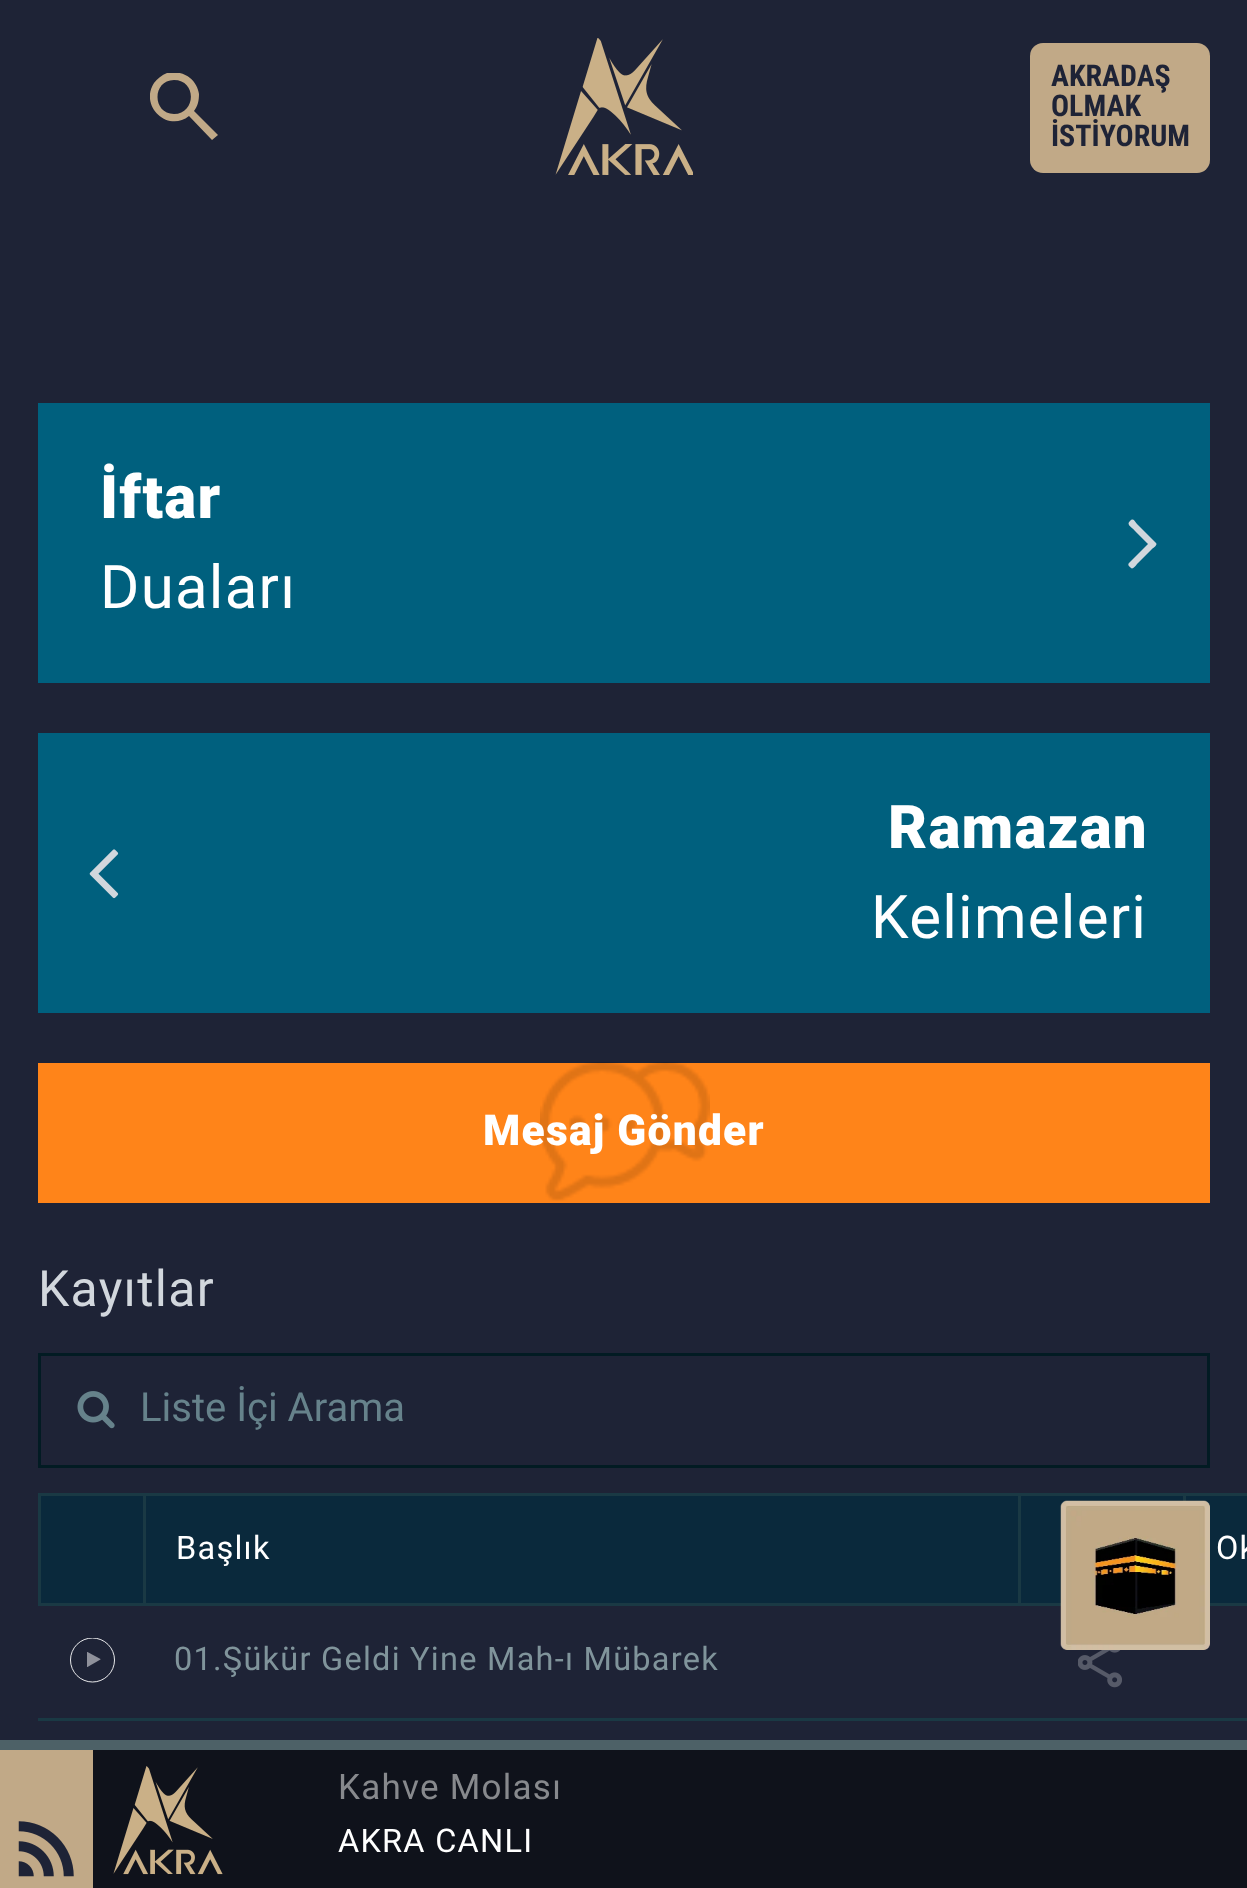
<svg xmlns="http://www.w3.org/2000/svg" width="1247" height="1888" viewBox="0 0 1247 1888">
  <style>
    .t1 { font: bold 30px Roboto Condensed; fill: #1e2336; }
    .t2 { font: 900 60px Roboto; letter-spacing: 1.25px; fill: #fff; }
    .t3 { font: 60px Roboto; letter-spacing: 1.25px; fill: #fff; }
    .t4 { font: 900 42.5px Roboto; letter-spacing: 1.25px; fill: #fff; }
    .t5 { font: 50px Roboto; letter-spacing: 1.25px; fill: #d2d7dd; }
    .t6 { font: 40px Roboto; fill: #66828b; }
    .t7 { font: 32.5px Roboto; letter-spacing: 1.25px; fill: #fff; }
    .t8 { font: 32.5px Roboto; letter-spacing: 1.25px; fill: #80949b; }
    .t9 { font: 35px Roboto; letter-spacing: 1.25px; fill: #87898d; }
  </style>
  <defs>
    <clipPath id="clip1"><rect x="150" y="73" width="68" height="67"/></clipPath>
    <clipPath id="clip2"><rect x="70" y="1638" width="45" height="45"/></clipPath>
  </defs>
  <rect width="100%" height="100%" fill="#1e2336"/>
  <g clip-path="url(#clip1)">
    <path d="M212 140L189 116C168 133 139 106 154 83C157 79 162 75 167 73C175 71 184 73 190 78C195 82 198 88 199 94C199 100 198 106 194 111L218 135ZM174 114C196 114 197 80 174 80C152 80 152 114 174 114Z" fill="#c1a987"/>
  </g>
  <image x="555" y="38" width="138" height="137" href="images/1.png"/>
  <rect x="1030" y="43" width="180" height="130" rx="13" fill="#c1a987"/>
  <text x="1051" y="86" class="t1">AKRADAŞ</text>
  <text x="1051" y="116" class="t1">OLMAK</text>
  <text x="1051" y="146" class="t1">İSTİYORUM</text>
  <rect x="38" y="403" width="1172" height="280" fill="#00607e"/>
  <text x="100" y="518" class="t2">İftar</text>
  <path d="M1156 543C1158 545 1153 548 1152 549L1137 564C1137 564 1133 570 1131 568C1130 567 1127 565 1129 563L1148 544L1135 531C1131 526 1126 525 1130 521C1133 518 1134 520 1137 524Z" fill="#d2d7dd"/>
  <text x="100" y="608" class="t3">Duaları</text>
  <rect x="38" y="733" width="1172" height="280" fill="#00607e"/>
  <text x="888" y="848" class="t2">Ramazan</text>
  <image x="89" y="849" width="30" height="50" href="images/2.png"/>
  <text x="871" y="938" class="t3">Kelimeleri</text>
  <rect x="38" y="1063" width="1172" height="140" fill="#ff8419"/>
  <image x="540" y="1062" width="170" height="139" href="images/3.png"/>
  <text x="483" y="1145" class="t4">Mesaj Gönder</text>
  <text x="38" y="1306" class="t5">Kayıtlar</text>
  <rect x="39.5" y="1354.5" width="1169" height="112" fill="none" stroke="#021b23" stroke-width="3"/>
  <image x="77" y="1391" width="38" height="38" href="images/4.png"/>
  <text x="140" y="1421" class="t6">Liste İçi Arama</text>
  <rect x="41" y="1496" width="1206" height="107" fill="#0a293c"/>
  <rect x="38" y="1493" width="1209" height="3" fill="#1a3944"/>
  <rect x="38" y="1603" width="1209" height="3" fill="#1a3944"/>
  <rect x="38" y="1493" width="3" height="112" fill="#1a3944"/>
  <rect x="143" y="1493" width="3" height="112" fill="#1a3944"/>
  <text x="176" y="1559" class="t7">Başlık</text>
  <rect x="1018" y="1493" width="3" height="112" fill="#1a3944"/>
  <rect x="1183" y="1493" width="3" height="8" fill="#1a3944"/>
  <text x="1216" y="1559" class="t7">Ok</text>
  <g clip-path="url(#clip2)">
    <circle cx="92.5" cy="1660" r="22" fill="none" stroke="#fff" stroke-width="0.9"/>
  </g>
  <path d="M100.5 1659V1659.5L87.5 1667H87V1666.5V1652H87.5Z" fill="#8f919b"/>
  <text x="174" y="1670" class="t8">01.Şükür Geldi Yine Mah-ı Mübarek</text>
  <image x="1078" y="1650" width="44" height="38" href="images/5.png"/>
  <rect x="38" y="1718" width="1209" height="3" fill="#1a3944"/>
  <image x="1060" y="1500" width="150" height="150" href="images/6.png"/>
  <rect x="93" y="1750" width="1154" height="138" fill="#0f121b"/>
  <rect x="0" y="1740" width="1247" height="10" fill="#4d6167"/>
  <rect x="0" y="1750" width="93" height="138" fill="#c1a987"/>
  <image x="18" y="1821" width="56" height="56" href="images/7.png"/>
  <image x="113" y="1766" width="110" height="109" href="images/8.png"/>
  <text x="338" y="1799" class="t9">Kahve Molası</text>
  <text x="338" y="1852" class="t7">AKRA CANLI</text>
</svg>
